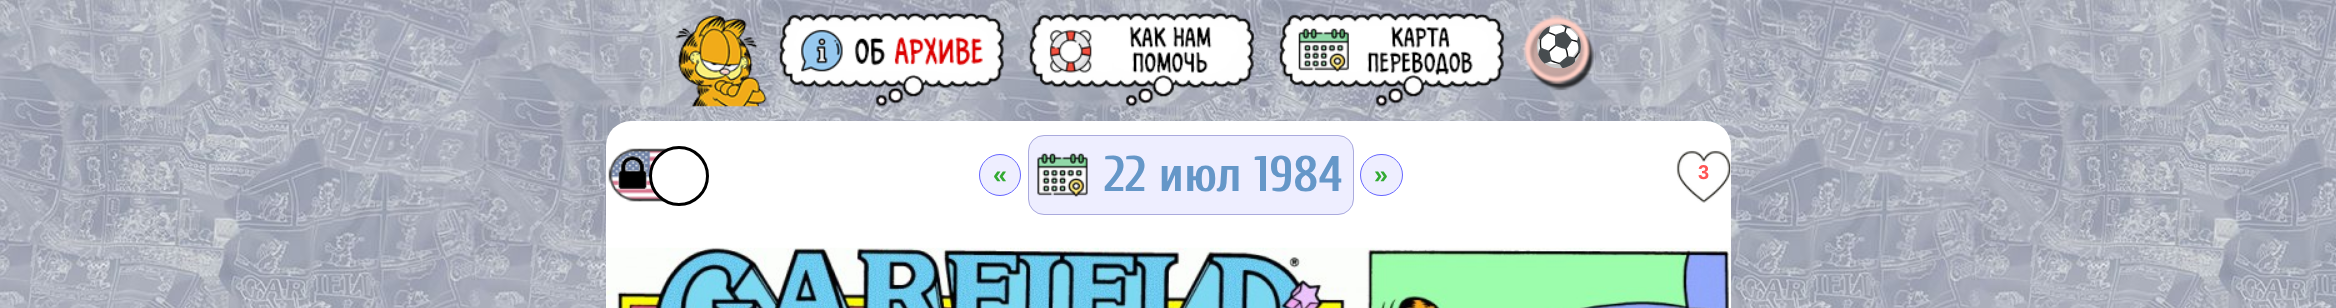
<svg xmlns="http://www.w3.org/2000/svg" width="2336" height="308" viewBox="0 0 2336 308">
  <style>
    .t1 { font: bold 40px Noto Color Emoji; fill: #000; }
    .t2 { font: bold 25px Liberation Sans; fill: #3a3; }
    .t3 { font: bold 50px Cuprum; fill: #6597c8; }
    .t4 { font: bold 20px Liberation Sans; fill: #f55; }
  </style>
  <rect width="100%" height="100%" fill="#fff"/>
  <image x="0" y="0" width="2336" height="308" href="images/1.png"/>
  <image x="675" y="14" width="92" height="93" href="images/2.png"/>
  <image x="778" y="12" width="226" height="95" href="images/3.png"/>
  <image x="1028" y="12" width="226" height="95" href="images/4.png"/>
  <image x="1278" y="12" width="226" height="95" href="images/5.png"/>
  <image x="1521" y="15" width="76" height="76" href="images/6.png"/>
  <text x="1534" y="60" class="t1">⚽</text>
  <rect x="606" y="121" width="1125" height="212" rx="25" fill="#fff"/>
  <image x="608" y="148" width="61" height="54" href="images/7.png"/>
  <circle cx="679" cy="176" r="28.5" fill="#fff" stroke="#000" stroke-width="3"/>
  <circle cx="1000" cy="175" r="20.5" fill="#eef" stroke="#66f"/>
  <text x="993" y="183" class="t2">«</text>
  <rect x="1028" y="135" width="326" height="80" rx="16" fill="#eef"/>
  <image x="1037" y="153" width="51" height="44" href="images/8.png"/>
  <rect x="1028.5" y="135.5" width="325" height="79" rx="15.5" fill="none" stroke="#aad"/>
  <text x="1104" y="191" class="t3">22 июл 1984</text>
  <rect x="1360.5" y="154.5" width="42" height="41" rx="20.5" fill="#eef" stroke="#66f"/>
  <text x="1374" y="183" class="t2">»</text>
  <image x="1676" y="150" width="55" height="53" href="images/9.png"/>
  <text x="1698" y="179" class="t4">3</text>
  <image x="606" y="247" width="1126" height="61" href="images/10.png"/>
</svg>
